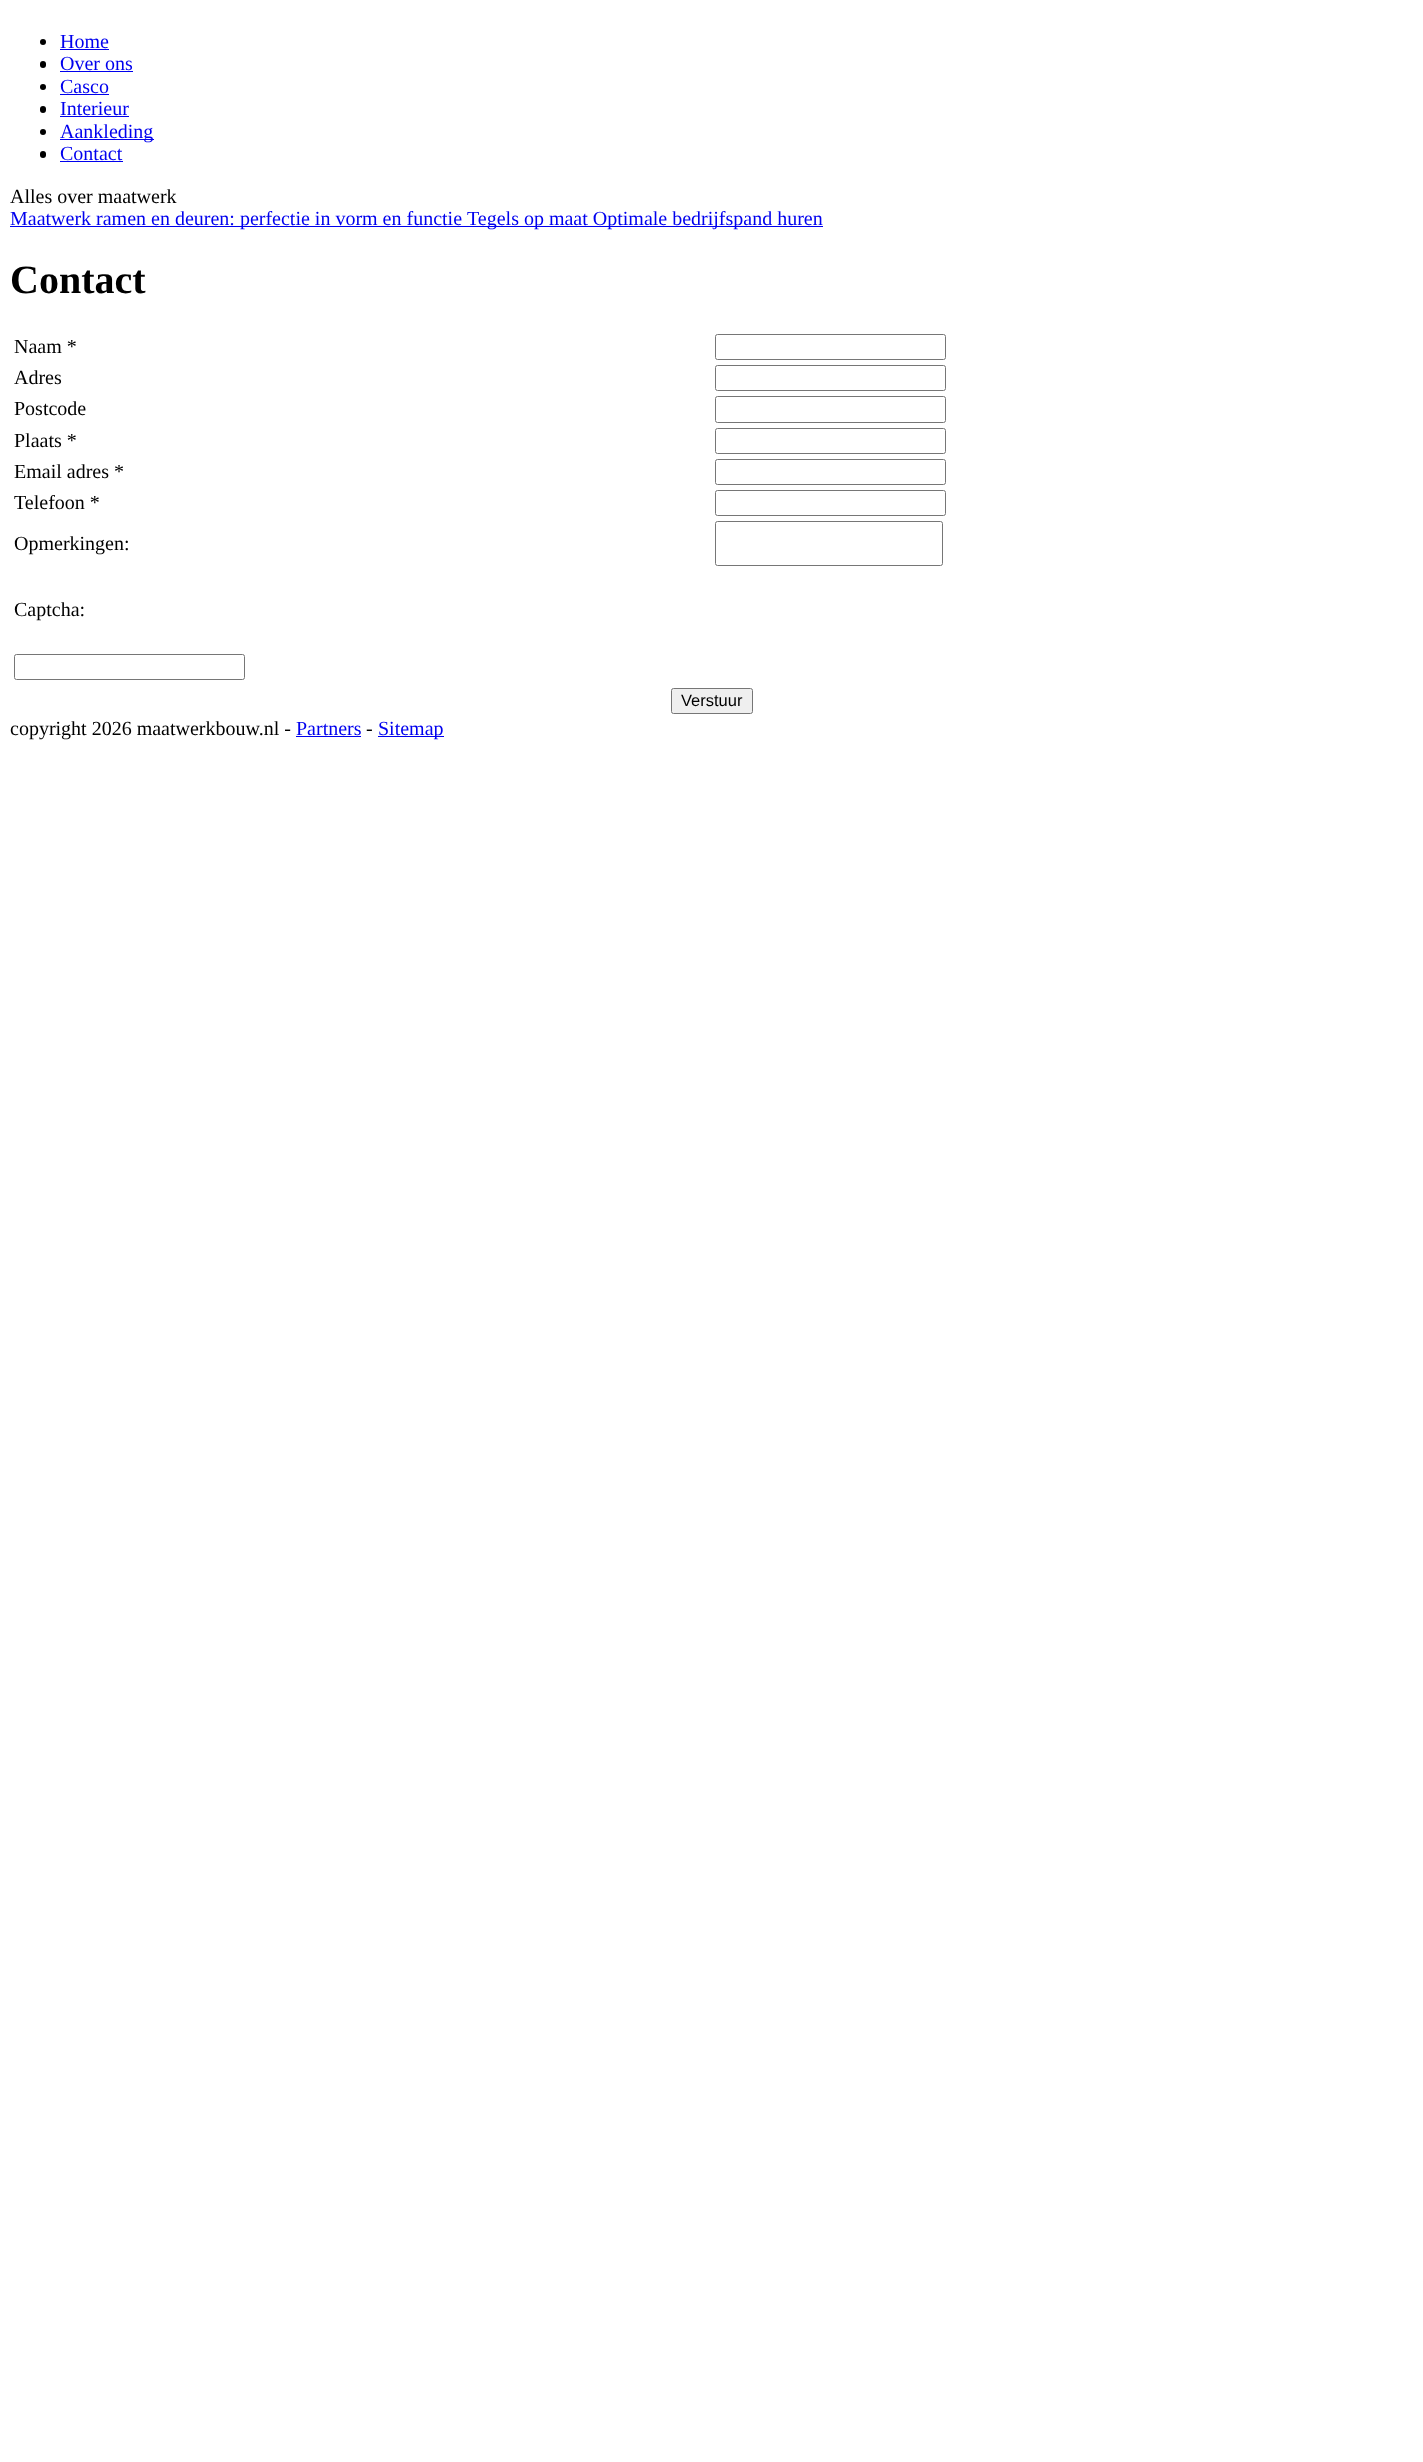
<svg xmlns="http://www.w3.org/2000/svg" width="1423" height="2462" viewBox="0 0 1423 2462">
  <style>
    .t1 { font: 20px Liberation Serif; fill: #00e; }
    .t2 { font: 20px Liberation Serif; fill: #000; }
    .t3 { font: bold 40px Liberation Serif; fill: #000; }
    .t4 { font: 16.5px Liberation Sans; fill: #000; }
  </style>
  <rect width="100%" height="100%" fill="#fff"/>
  <circle cx="43" cy="42" r="3" fill="#000"/>
  <text x="60" y="48" class="t1">Home</text>
  <rect x="60" y="49" width="49" height="1" fill="#00e"/>
  <rect x="40" y="61" width="6" height="7" rx="3" fill="#000"/>
  <text x="60" y="70" class="t1">Over ons</text>
  <rect x="60" y="71" width="73" height="1" fill="#00e"/>
  <circle cx="43" cy="87" r="3" fill="#000"/>
  <text x="60" y="93" class="t1">Casco</text>
  <rect x="60" y="94" width="49" height="1" fill="#00e"/>
  <rect x="40" y="106" width="6" height="7" rx="3" fill="#000"/>
  <text x="60" y="115" class="t1">Interieur</text>
  <rect x="60" y="116" width="69" height="1" fill="#00e"/>
  <circle cx="43" cy="132" r="3" fill="#000"/>
  <rect x="60" y="139" width="94" height="1" fill="#00e"/>
  <text x="60" y="138" class="t1">Aankleding</text>
  <rect x="40" y="151" width="6" height="7" rx="3" fill="#000"/>
  <text x="60" y="160" class="t1">Contact</text>
  <rect x="60" y="161" width="63" height="1" fill="#00e"/>
  <text x="10" y="203" class="t2">Alles over maatwerk</text>
  <rect x="10" y="226" width="813" height="1" fill="#00e"/>
  <text x="10" y="225" class="t1">Maatwerk ramen en deuren: perfectie in vorm en functie</text>
  <text x="467" y="225" class="t1">Tegels op maat Optimale bedrijfspand huren</text>
  <text x="10" y="293" class="t3">Contact</text>
  <text x="14" y="353" class="t2">Naam *</text>
  <rect x="715.5" y="334.5" width="230" height="25" rx="2" fill="none" stroke="#767676"/>
  <text x="14" y="384" class="t2">Adres</text>
  <rect x="715.5" y="365.5" width="230" height="25" rx="2" fill="none" stroke="#767676"/>
  <text x="14" y="415" class="t2">Postcode</text>
  <rect x="715.5" y="396.5" width="230" height="26" rx="2" fill="none" stroke="#767676"/>
  <text x="14" y="447" class="t2">Plaats *</text>
  <rect x="715.5" y="428.5" width="230" height="25" rx="2" fill="none" stroke="#767676"/>
  <text x="14" y="478" class="t2">Email adres *</text>
  <rect x="715.5" y="459.5" width="230" height="25" rx="2" fill="none" stroke="#767676"/>
  <text x="14" y="509" class="t2">Telefoon *</text>
  <rect x="715.5" y="490.5" width="230" height="25" rx="2" fill="none" stroke="#767676"/>
  <text x="14" y="550" class="t2">Opmerkingen:</text>
  <rect x="715.5" y="521.5" width="227" height="44" rx="2" fill="none" stroke="#767676"/>
  <text x="14" y="616" class="t2">Captcha:</text>
  <rect x="14.5" y="654.5" width="230" height="25" rx="2" fill="none" stroke="#767676"/>
  <rect x="671.5" y="688.5" width="81" height="25" rx="2" fill="#efefef" stroke="#767676"/>
  <text x="681" y="706" class="t4">Verstuur</text>
  <text x="10" y="735" class="t2">copyright 2026 maatwerkbouw.nl -</text>
  <text x="296" y="735" class="t1">Partners</text>
  <rect x="296" y="736" width="65" height="1" fill="#00e"/>
  <text x="366" y="735" class="t2">-</text>
  <rect x="378" y="736" width="66" height="1" fill="#00e"/>
  <text x="378" y="735" class="t1">Sitemap</text>
</svg>
